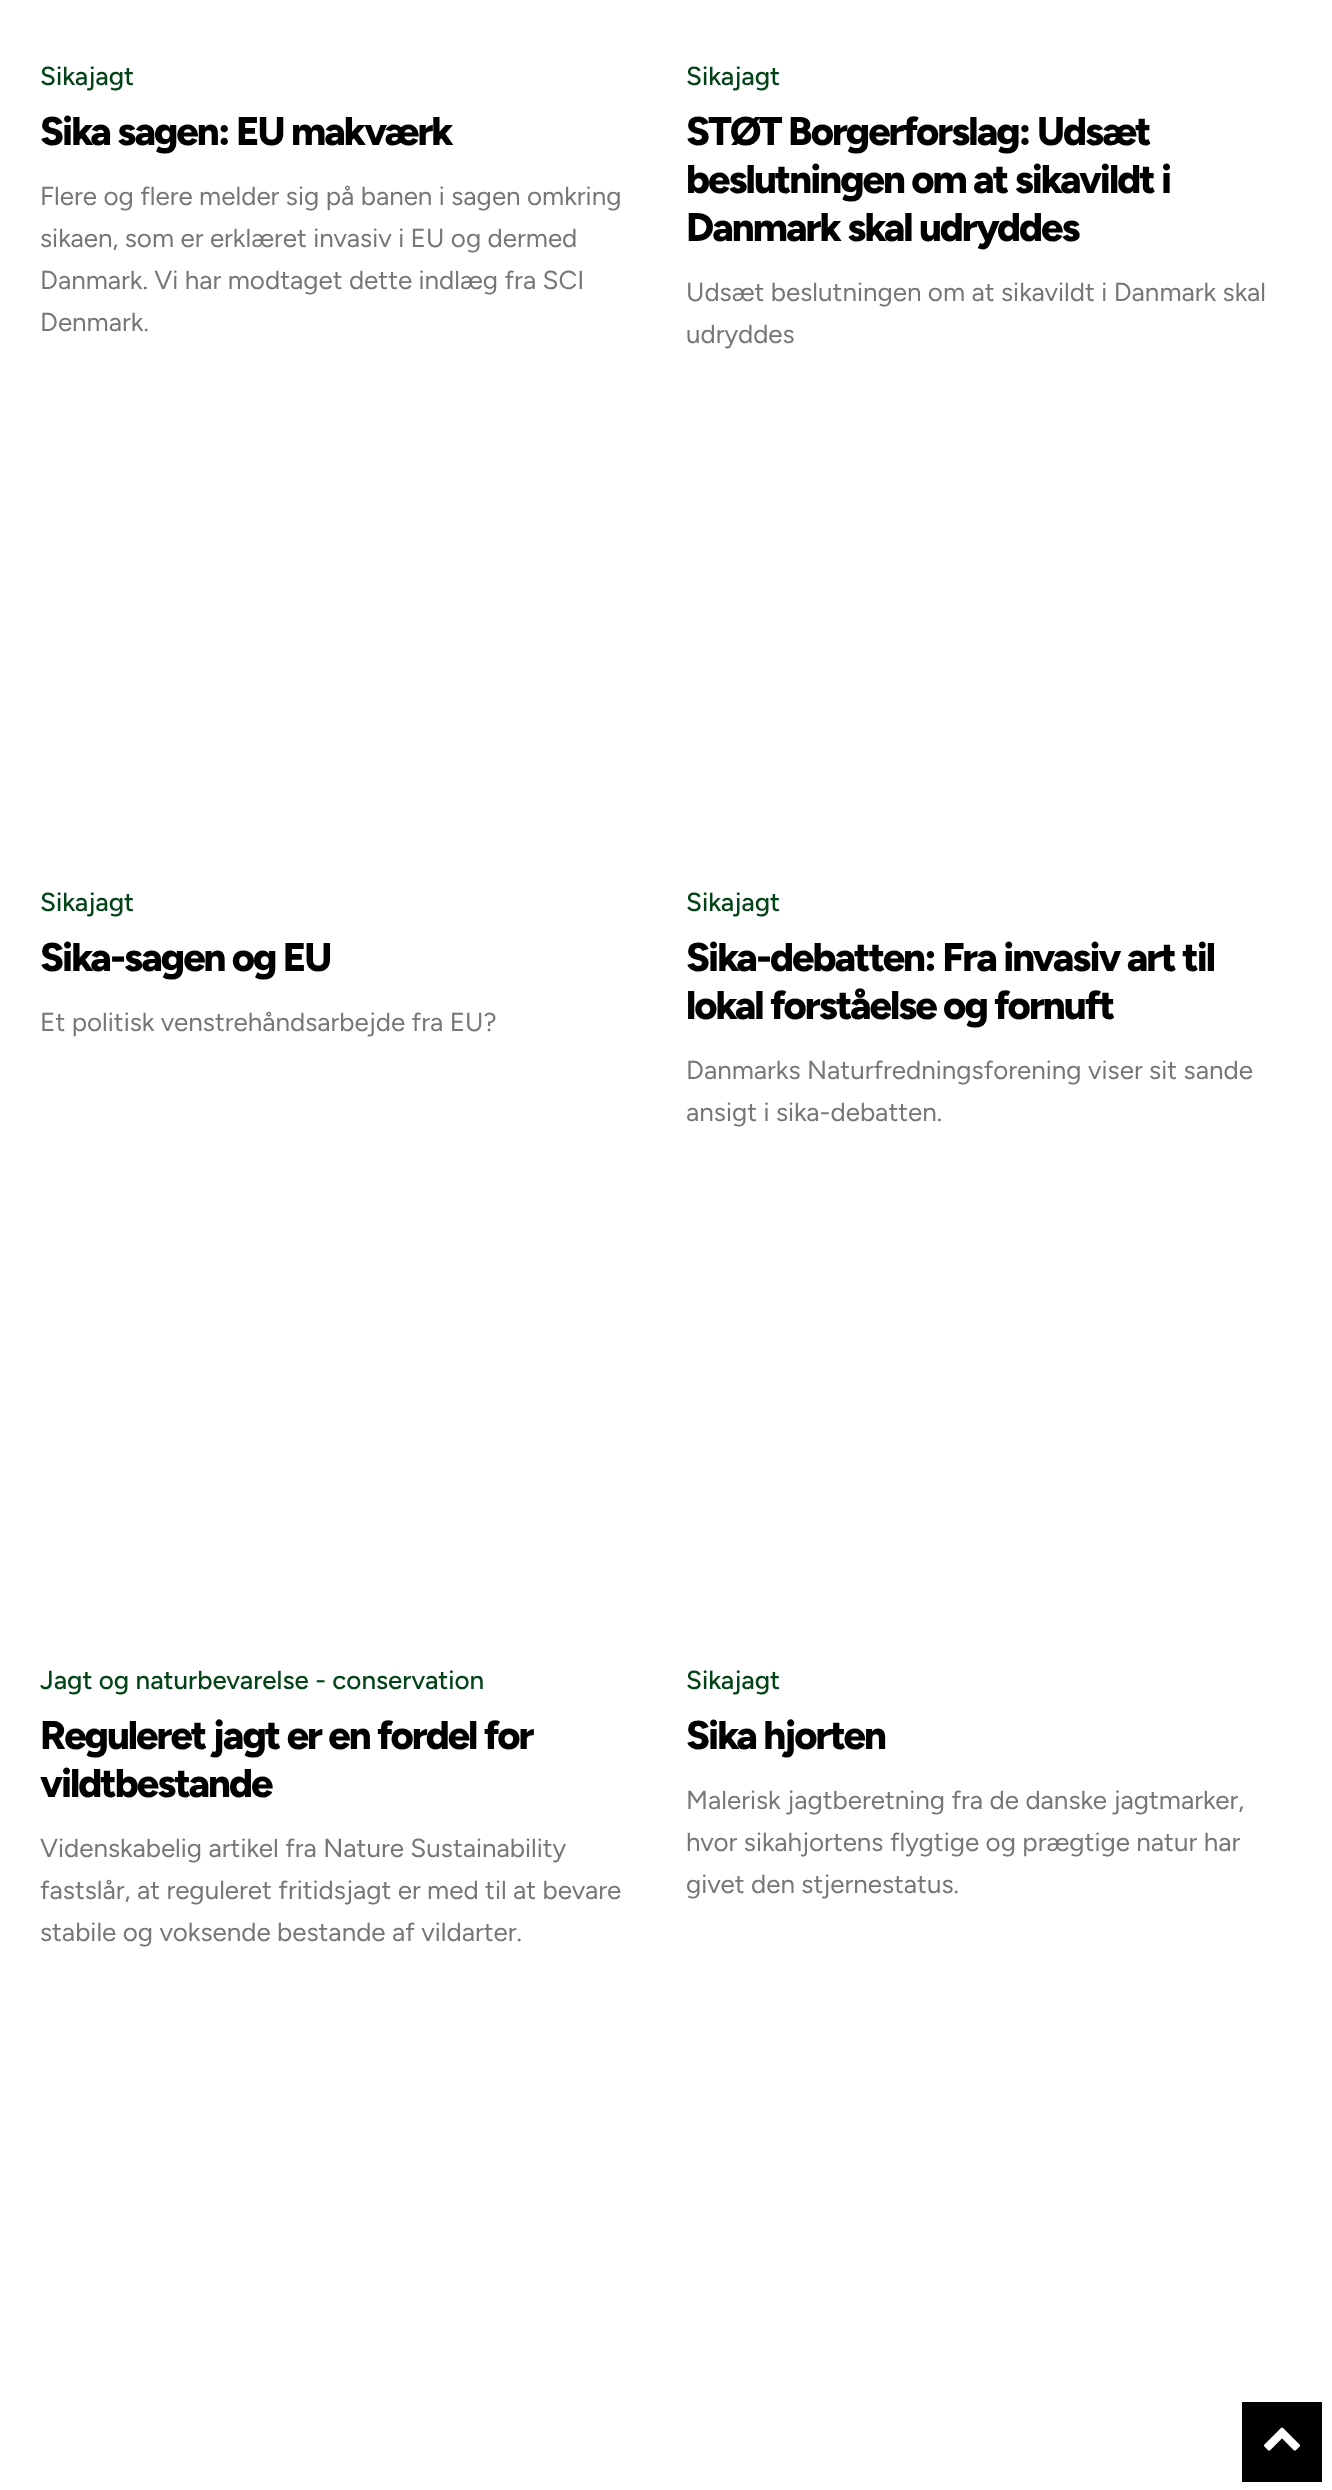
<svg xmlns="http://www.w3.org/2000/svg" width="1332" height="2490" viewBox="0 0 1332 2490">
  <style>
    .t1 { font: 500 26px Figtree; fill: #024417; }
    .t2 { font: 800 40px Figtree; letter-spacing: -2px; fill: #000; }
    .t3 { font: 26px Figtree; fill: #767676; }
  </style>
  <rect width="100%" height="100%" fill="#fff"/>
  <text x="40" y="85" class="t1">Sikajagt</text>
  <text x="40" y="145" class="t2">Sika sagen: EU makværk</text>
  <text x="40" y="205" class="t3">Flere og flere melder sig på banen i sagen omkring</text>
  <text x="40" y="247" class="t3">sikaen, som er erklæret invasiv i EU og dermed</text>
  <text x="40" y="289" class="t3">Danmark. Vi har modtaget dette indlæg fra SCI</text>
  <text x="40" y="331" class="t3">Denmark.</text>
  <text x="686" y="85" class="t1">Sikajagt</text>
  <text x="686" y="145" class="t2">STØT Borgerforslag: Udsæt</text>
  <text x="686" y="193" class="t2">beslutningen om at sikavildt i</text>
  <text x="686" y="241" class="t2">Danmark skal udryddes</text>
  <text x="686" y="301" class="t3">Udsæt beslutningen om at sikavildt i Danmark skal</text>
  <text x="686" y="343" class="t3">udryddes</text>
  <text x="40" y="911" class="t1">Sikajagt</text>
  <text x="40" y="971" class="t2">Sika-sagen og EU</text>
  <text x="40" y="1031" class="t3">Et politisk venstrehåndsarbejde fra EU?</text>
  <text x="686" y="911" class="t1">Sikajagt</text>
  <text x="686" y="971" class="t2">Sika-debatten: Fra invasiv art til</text>
  <text x="686" y="1019" class="t2">lokal forståelse og fornuft</text>
  <text x="686" y="1079" class="t3">Danmarks Naturfredningsforening viser sit sande</text>
  <text x="686" y="1121" class="t3">ansigt i sika-debatten.</text>
  <text x="40" y="1689" class="t1">Jagt og naturbevarelse - conservation</text>
  <text x="40" y="1749" class="t2">Reguleret jagt er en fordel for</text>
  <text x="40" y="1797" class="t2">vildtbestande</text>
  <text x="40" y="1857" class="t3">Videnskabelig artikel fra Nature Sustainability</text>
  <text x="40" y="1899" class="t3">fastslår, at reguleret fritidsjagt er med til at bevare</text>
  <text x="40" y="1941" class="t3">stabile og voksende bestande af vildarter.</text>
  <text x="686" y="1689" class="t1">Sikajagt</text>
  <text x="686" y="1749" class="t2">Sika hjorten</text>
  <text x="686" y="1809" class="t3">Malerisk jagtberetning fra de danske jagtmarker,</text>
  <text x="686" y="1851" class="t3">hvor sikahjortens flygtige og prægtige natur har</text>
  <text x="686" y="1893" class="t3">givet den stjernestatus.</text>
  <rect x="1242" y="2402" width="80" height="80" fill="#000"/>
  <image x="1264" y="2427" width="36" height="24" href="images/1.png"/>
</svg>
